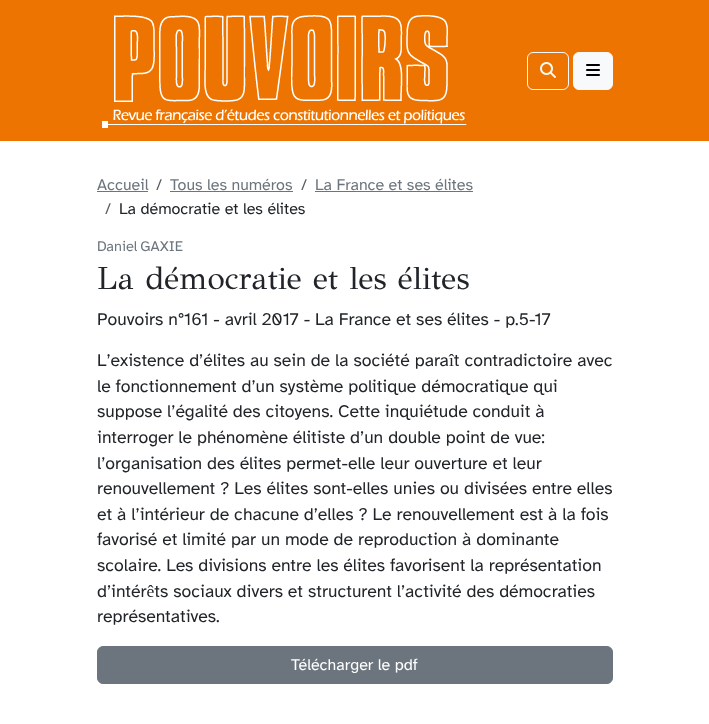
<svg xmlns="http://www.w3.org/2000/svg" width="709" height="724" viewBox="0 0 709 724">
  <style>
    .t1 { font: 16px Atkinson Hyperlegible; fill: #6c757d; }
    .t2 { font: 16px Atkinson Hyperlegible; fill: #595c5f; }
    .t3 { font: 16px Atkinson Hyperlegible; fill: #212529; }
    .t4 { font: 14.5px Atkinson Hyperlegible; fill: #6c757d; }
    .t5 { font: 32px GFS Didot; fill: #212529; }
    .t6 { font: 17.6px Atkinson Hyperlegible; fill: #212529; }
    .t7 { font: 16px Atkinson Hyperlegible; fill: #fff; }
  </style>
  <rect width="100%" height="100%" fill="#fff"/>
  <rect x="0" y="0" width="709" height="141" fill="#ed7401"/>
  <image x="102" y="15" width="365" height="113" href="images/1.png"/>
  <rect x="527.5" y="52.5" width="41" height="37" rx="5.5" fill="none" stroke="#f8f9fa"/>
  <image x="540" y="62" width="16" height="16" href="images/2.png"/>
  <rect x="573.5" y="52.5" width="39" height="37" rx="5.5" fill="#f8f9fa" stroke="#f8f9fa"/>
  <image x="586" y="64" width="14" height="12" href="images/3.png"/>
  <text x="97" y="190" class="t1">Accueil</text>
  <rect x="97" y="191" width="51" height="1" fill="#6c757d"/>
  <text x="156" y="190" class="t2">/</text>
  <text x="170" y="190" class="t1">Tous les numéros</text>
  <rect x="170" y="191" width="123" height="1" fill="#6c757d"/>
  <text x="301" y="190" class="t2">/</text>
  <text x="315" y="190" class="t1">La France et ses élites</text>
  <rect x="315" y="191" width="158" height="1" fill="#6c757d"/>
  <text x="105" y="214" class="t2">/</text>
  <text x="119" y="214" class="t3">La démocratie et les élites</text>
  <text x="97" y="251" word-spacing="-1" class="t4">Daniel GAXIE</text>
  <text x="97" y="289" class="t5">La démocratie et les élites</text>
  <text x="97" y="325" class="t6">Pouvoirs n°161 - avril 2017 - La France et ses élites - p.5-17</text>
  <text x="97" y="366" class="t6">L’existence d’élites au sein de la société paraît contradictoire avec</text>
  <text x="97" y="392" class="t6">le fonctionnement d’un système politique démocratique qui</text>
  <text x="97" y="417" class="t6">suppose l’égalité des citoyens. Cette inquiétude conduit à</text>
  <text x="97" y="443" class="t6">interroger le phénomène élitiste d’un double point de vue:</text>
  <text x="97" y="469" class="t6">l’organisation des élites permet-elle leur ouverture et leur</text>
  <text x="97" y="494" class="t6">renouvellement ? Les élites sont-elles unies ou divisées entre elles</text>
  <text x="97" y="520" class="t6">et à l’intérieur de chacune d’elles ? Le renouvellement est à la fois</text>
  <text x="97" y="545" class="t6">favorisé et limité par un mode de reproduction à dominante</text>
  <text x="97" y="571" class="t6">scolaire. Les divisions entre les élites favorisent la représentation</text>
  <text x="97" y="597" class="t6">d’intérêts sociaux divers et structurent l’activité des démocraties</text>
  <text x="97" y="622" class="t6">représentatives.</text>
  <rect x="97.5" y="646.5" width="515" height="37" rx="5.5" fill="#6c757d" stroke="#6c757d"/>
  <text x="291" y="670" class="t7">Télécharger le pdf</text>
</svg>
